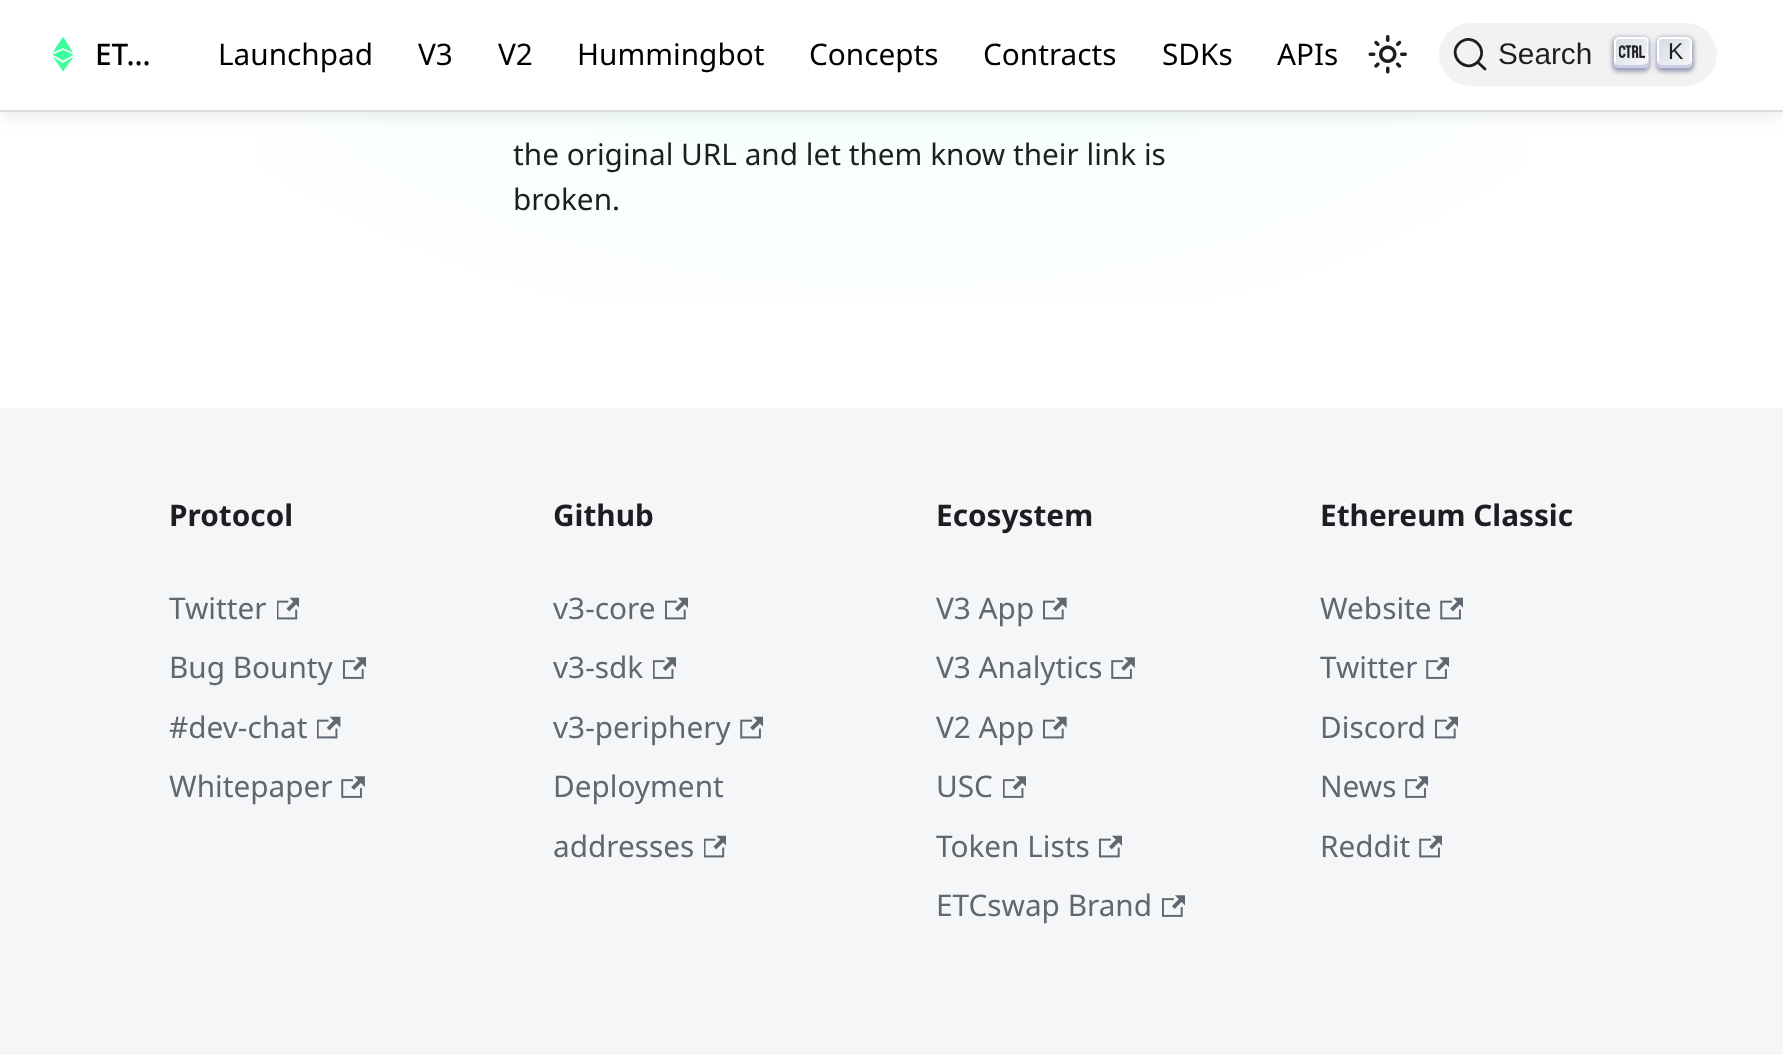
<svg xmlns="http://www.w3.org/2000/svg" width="1783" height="1055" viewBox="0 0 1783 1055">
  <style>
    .t1 { font: 500 29.75px Noto Sans; fill: #000; }
    .t2 { font: 29.75px Noto Sans; fill: #000; }
    .t3 { font: 29.75px Liberation Sans; fill: #1c1e21; }
    .t4 { font: 23px Liberation Sans; fill: #1c1e21; }
    .t5 { font: 29.75px Noto Sans; fill: #1c1e21; }
    .t6 { font: bold 29.75px Noto Sans; fill: #1c1e21; }
    .t7 { font: 29.75px Noto Sans; fill: #606770; }
  </style>
  <defs>
    <radialGradient id="g1" gradientUnits="userSpaceOnUse" cx="0" cy="0" r="1" gradientTransform="matrix(892 0 0 528 892 -158)"><stop offset="0" stop-color="#ebfff6"/><stop offset="1" stop-color="#fff"/></radialGradient>
    <linearGradient id="g2" gradientUnits="userSpaceOnUse" x1="1614" y1="36" x2="1648" y2="69"><stop offset="0" stop-color="#d5dbe4"/><stop offset="1" stop-color="#f8f8f8"/></linearGradient>
    <linearGradient id="g3" gradientUnits="userSpaceOnUse" x1="1658" y1="36" x2="1691" y2="69"><stop offset="0" stop-color="#d5dbe4"/><stop offset="1" stop-color="#f8f8f8"/></linearGradient>
  </defs>
  <rect width="100%" height="100%" fill="#fff"/>
  <rect x="255" y="112" width="1274" height="192" fill="url(#g1)"/>
  <rect x="0" y="2" width="1783" height="112" fill="#0000001a" filter="blur(9px)"/>
  <rect x="0" y="0" width="1783" height="110" fill="#fff"/>
  <rect x="0" y="110" width="1783" height="2" fill="#dadde1"/>
  <image x="52" y="37" width="22" height="35" href="images/1.png"/>
  <text x="95" y="65" class="t1">ET…</text>
  <text x="218" y="65" class="t2">Launchpad</text>
  <text x="418" y="65" class="t2">V3</text>
  <text x="498" y="65" class="t2">V2</text>
  <text x="577" y="65" class="t2">Hummingbot</text>
  <text x="809" y="65" class="t2">Concepts</text>
  <text x="983" y="65" class="t2">Contracts</text>
  <text x="1162" y="65" class="t2">SDKs</text>
  <text x="1277" y="65" class="t2">APIs</text>
  <image x="1368" y="35" width="39" height="39" href="images/2.png"/>
  <rect x="1439" y="23" width="278" height="63" rx="31.5" fill="#f2f2f2"/>
  <path d="M1477.5 62L1485 69L1477.5 62C1465.5 74 1447 55.5 1459 43.5C1471.5 31 1490 49.5 1477.5 62Z" fill="none" stroke="#1c1e21" stroke-width="2.8" stroke-linecap="round" stroke-linejoin="round"/>
  <text x="1498" y="64" class="t3">Search</text>
  <rect x="1612" y="37" width="38" height="35" rx="7" fill="#1e235a66" filter="blur(2px)"/>
  <rect x="1615" y="38" width="33" height="29" rx="4" fill="url(#g2)" stroke="#fff" stroke-width="2"/>
  <path d="M1648.5 39.5L1648 50L1648.5 59C1648 60.5 1648 61.5 1647.5 62.5C1645 66 1633 65 1629 65H1622.5C1619 65 1615.5 65.5 1614 61.5V63C1614 66 1616 68 1619 68H1644C1647 68 1649 66 1649 63V42C1649 41 1649 40 1648.5 39.5Z" fill="#cdcde6"/>
  <image x="1619" y="45" width="26" height="13" href="images/3.png"/>
  <rect x="1656" y="37" width="38" height="35" rx="7" fill="#1e235a66" filter="blur(2px)"/>
  <rect x="1658" y="38" width="33" height="29" rx="4" fill="url(#g3)" stroke="#fff" stroke-width="2"/>
  <path d="M1692 61C1691 64 1689 65 1683 65H1662C1659 65 1657.5 62.5 1657 60C1657 67.5 1658.5 68 1666 68H1683C1689 68 1692 68 1692 61Z" fill="#cdcde6"/>
  <text x="1668" y="59" class="t4">K</text>
  <text x="513" y="165" class="t5">the original URL and let them know their link is</text>
  <text x="513" y="210" class="t5">broken.</text>
  <rect x="0" y="408" width="1783" height="647" fill="#f5f6f7"/>
  <text x="169" y="526" class="t6">Protocol</text>
  <text x="169" y="619" class="t7">Twitter</text>
  <image x="277" y="597" width="22" height="23" href="images/4.png"/>
  <text x="169" y="678" class="t7">Bug Bounty</text>
  <image x="343" y="657" width="23" height="22" href="images/5.png"/>
  <text x="169" y="738" class="t7">#dev-chat</text>
  <image x="317" y="716" width="24" height="23" href="images/6.png"/>
  <text x="169" y="797" class="t7">Whitepaper</text>
  <image x="341" y="776" width="24" height="22" href="images/7.png"/>
  <text x="553" y="526" class="t6">Github</text>
  <text x="553" y="619" class="t7">v3-core</text>
  <image x="665" y="597" width="23" height="23" href="images/8.png"/>
  <text x="553" y="678" class="t7">v3-sdk</text>
  <image x="653" y="657" width="23" height="22" href="images/9.png"/>
  <text x="553" y="738" class="t7">v3-periphery</text>
  <image x="740" y="716" width="23" height="23" href="images/10.png"/>
  <text x="553" y="797" class="t7">Deployment</text>
  <text x="553" y="857" class="t7">addresses</text>
  <image x="704" y="835" width="22" height="23" href="images/4.png"/>
  <text x="936" y="526" class="t6">Ecosystem</text>
  <text x="936" y="619" class="t7">V3 App</text>
  <image x="1043" y="597" width="24" height="23" href="images/11.png"/>
  <text x="936" y="678" class="t7">V3 Analytics</text>
  <image x="1111" y="657" width="24" height="22" href="images/7.png"/>
  <text x="936" y="738" class="t7">V2 App</text>
  <image x="1043" y="716" width="24" height="23" href="images/11.png"/>
  <text x="936" y="797" class="t7">USC</text>
  <image x="1003" y="776" width="23" height="22" href="images/9.png"/>
  <text x="936" y="857" class="t7">Token Lists</text>
  <image x="1099" y="835" width="23" height="23" href="images/8.png"/>
  <text x="936" y="916" class="t7">ETCswap Brand</text>
  <image x="1162" y="895" width="23" height="22" href="images/5.png"/>
  <text x="1320" y="526" class="t6">Ethereum Classic</text>
  <text x="1320" y="619" class="t7">Website</text>
  <image x="1440" y="597" width="23" height="23" href="images/10.png"/>
  <text x="1320" y="678" class="t7">Twitter</text>
  <image x="1426" y="657" width="23" height="22" href="images/12.png"/>
  <text x="1320" y="738" class="t7">Discord</text>
  <image x="1435" y="716" width="23" height="23" href="images/8.png"/>
  <text x="1320" y="797" class="t7">News</text>
  <image x="1405" y="776" width="23" height="22" href="images/12.png"/>
  <text x="1320" y="857" class="t7">Reddit</text>
  <image x="1419" y="835" width="23" height="23" href="images/10.png"/>
</svg>
